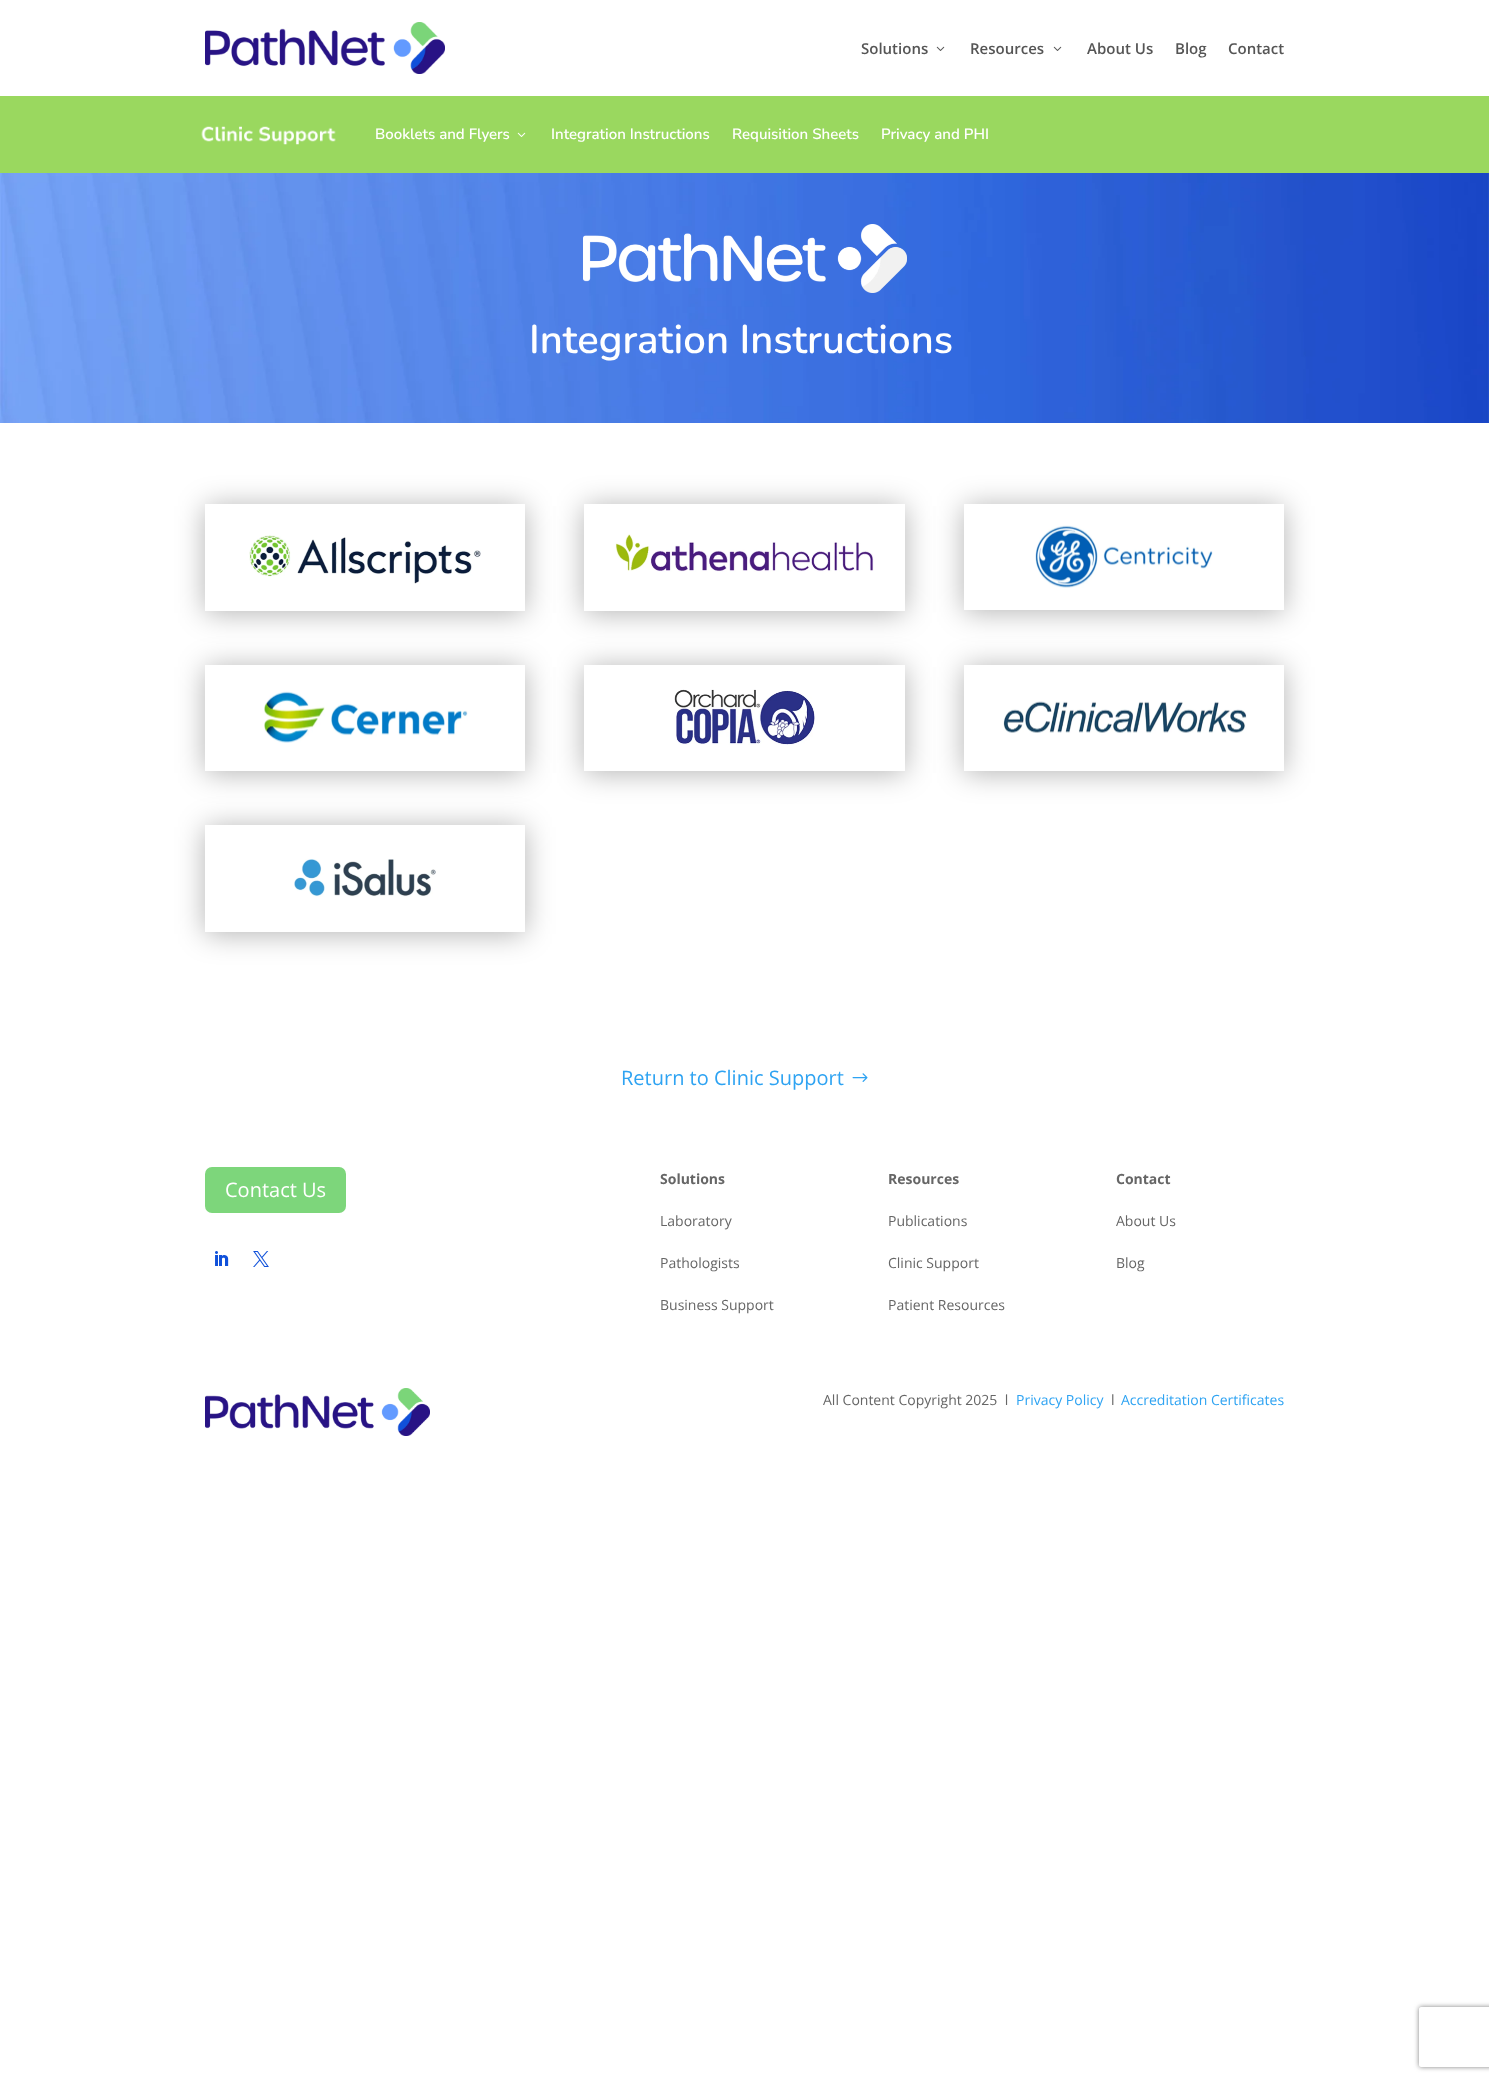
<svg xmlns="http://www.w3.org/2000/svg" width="1489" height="2081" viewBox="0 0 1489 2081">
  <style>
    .t1 { font: 600 15px Open Sans; fill: #555; }
    .t2 { font: 200 15px Nunito Sans; fill: #fff; }
    .t3 { font: 200 40px Nunito; fill: #fff; }
    .t4 { font: 20px Open Sans; fill: #2ea3f2; }
    .t5 { font: 20px Open Sans; fill: #fff; }
    .t6 { font: bold 14px Open Sans; fill: #666; }
    .t7 { font: 14px Open Sans; fill: #666; }
    .t8 { font: 14px Open Sans; fill: #2ea3f2; }
  </style>
  <defs>
    <clipPath id="clip1"><path d="M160 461H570V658H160ZM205 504H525V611H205Z" clip-rule="evenodd"/></clipPath>
    <clipPath id="clip2"><path d="M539 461H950V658H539ZM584 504H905V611H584Z" clip-rule="evenodd"/></clipPath>
    <clipPath id="clip3"><path d="M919 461H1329V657H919ZM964 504H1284V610H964Z" clip-rule="evenodd"/></clipPath>
    <clipPath id="clip4"><path d="M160 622H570V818H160ZM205 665H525V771H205Z" clip-rule="evenodd"/></clipPath>
    <clipPath id="clip5"><path d="M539 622H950V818H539ZM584 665H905V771H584Z" clip-rule="evenodd"/></clipPath>
    <clipPath id="clip6"><path d="M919 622H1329V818H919ZM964 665H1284V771H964Z" clip-rule="evenodd"/></clipPath>
    <clipPath id="clip7"><path d="M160 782H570V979H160ZM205 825H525V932H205Z" clip-rule="evenodd"/></clipPath>
    <clipPath id="clip8"><path d="M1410 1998H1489V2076H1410ZM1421 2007H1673C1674 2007 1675 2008 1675 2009V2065C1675 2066 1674 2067 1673 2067H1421C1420 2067 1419 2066 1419 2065V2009C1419 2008 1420 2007 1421 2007Z" clip-rule="evenodd"/></clipPath>
  </defs>
  <rect width="100%" height="100%" fill="#fff"/>
  <image x="205" y="22" width="240" height="52" href="images/1.png"/>
  <text x="861" y="54" class="t1">Solutions</text>
  <image x="936" y="46" width="9" height="5" href="images/2.png"/>
  <text x="970" y="54" class="t1">Resources</text>
  <image x="1053" y="46" width="9" height="5" href="images/2.png"/>
  <text x="1087" y="54" class="t1">About Us</text>
  <text x="1175" y="54" class="t1">Blog</text>
  <text x="1228" y="54" class="t1">Contact</text>
  <rect x="0" y="96" width="1489" height="77" fill="#9ad85f"/>
  <image x="201" y="126" width="135" height="19" href="images/3.png"/>
  <text x="375" y="139" class="t2">Booklets and Flyers</text>
  <image x="517" y="132" width="9" height="5" href="images/4.png"/>
  <text x="551" y="139" class="t2">Integration Instructions</text>
  <text x="732" y="139" class="t2">Requisition Sheets</text>
  <text x="881" y="139" class="t2">Privacy and PHI</text>
  <image x="0" y="173" width="1489" height="250" href="images/5.png"/>
  <image x="583" y="224" width="324" height="69" href="images/6.png"/>
  <text x="529" y="353" class="t3">Integration Instructions</text>
  <g clip-path="url(#clip1)">
    <rect x="205" y="506" width="320" height="107" fill="#0000004d" filter="blur(14.5px)"/>
  </g>
  <image x="249" y="535" width="232" height="49" href="images/7.png"/>
  <g clip-path="url(#clip2)">
    <rect x="584" y="506" width="321" height="107" fill="#0000004d" filter="blur(14.5px)"/>
  </g>
  <image x="615" y="534" width="259" height="38" href="images/8.png"/>
  <g clip-path="url(#clip3)">
    <rect x="964" y="506" width="320" height="106" fill="#0000004d" filter="blur(14.5px)"/>
  </g>
  <image x="1035" y="525" width="178" height="63" href="images/9.png"/>
  <g clip-path="url(#clip4)">
    <rect x="205" y="667" width="320" height="106" fill="#0000004d" filter="blur(14.5px)"/>
  </g>
  <image x="264" y="691" width="204" height="52" href="images/10.png"/>
  <g clip-path="url(#clip5)">
    <rect x="584" y="667" width="321" height="106" fill="#0000004d" filter="blur(14.5px)"/>
  </g>
  <image x="674" y="689" width="141" height="56" href="images/11.png"/>
  <g clip-path="url(#clip6)">
    <rect x="964" y="667" width="320" height="106" fill="#0000004d" filter="blur(14.5px)"/>
  </g>
  <image x="1003" y="701" width="244" height="32" href="images/12.png"/>
  <g clip-path="url(#clip7)">
    <rect x="205" y="827" width="320" height="107" fill="#0000004d" filter="blur(14.5px)"/>
  </g>
  <image x="294" y="859" width="142" height="38" href="images/13.png"/>
  <text x="621" y="1085" class="t4">Return to Clinic Support</text>
  <image x="852" y="1073" width="16" height="9" href="images/14.png"/>
  <rect x="205" y="1167" width="141" height="46" rx="7" fill="#7dd67b"/>
  <text x="225" y="1197" class="t5">Contact Us</text>
  <image x="215" y="1251" width="14" height="15" href="images/15.png"/>
  <image x="253" y="1251" width="16" height="16" href="images/16.png"/>
  <text x="660" y="1184" class="t6">Solutions</text>
  <text x="660" y="1226" class="t7">Laboratory</text>
  <text x="660" y="1268" class="t7">Pathologists</text>
  <text x="660" y="1310" class="t7">Business Support</text>
  <text x="888" y="1184" class="t6">Resources</text>
  <text x="888" y="1226" class="t7">Publications</text>
  <text x="888" y="1268" class="t7">Clinic Support</text>
  <text x="888" y="1310" class="t7">Patient Resources</text>
  <text x="1116" y="1184" class="t6">Contact</text>
  <text x="1116" y="1226" class="t7">About Us</text>
  <text x="1116" y="1268" class="t7">Blog</text>
  <image x="205" y="1388" width="225" height="48" href="images/17.png"/>
  <text x="823" y="1405" class="t7" xml:space="preserve">All Content Copyright 2025  l</text>
  <text x="1016" y="1405" class="t8">Privacy Policy</text>
  <text x="1111" y="1405" class="t7">l</text>
  <text x="1121" y="1405" class="t8">Accreditation Certificates</text>
  <g clip-path="url(#clip8)">
    <rect x="1419" y="2007" width="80" height="60" rx="2" fill="#808080" filter="blur(2.5px)"/>
  </g>
</svg>
